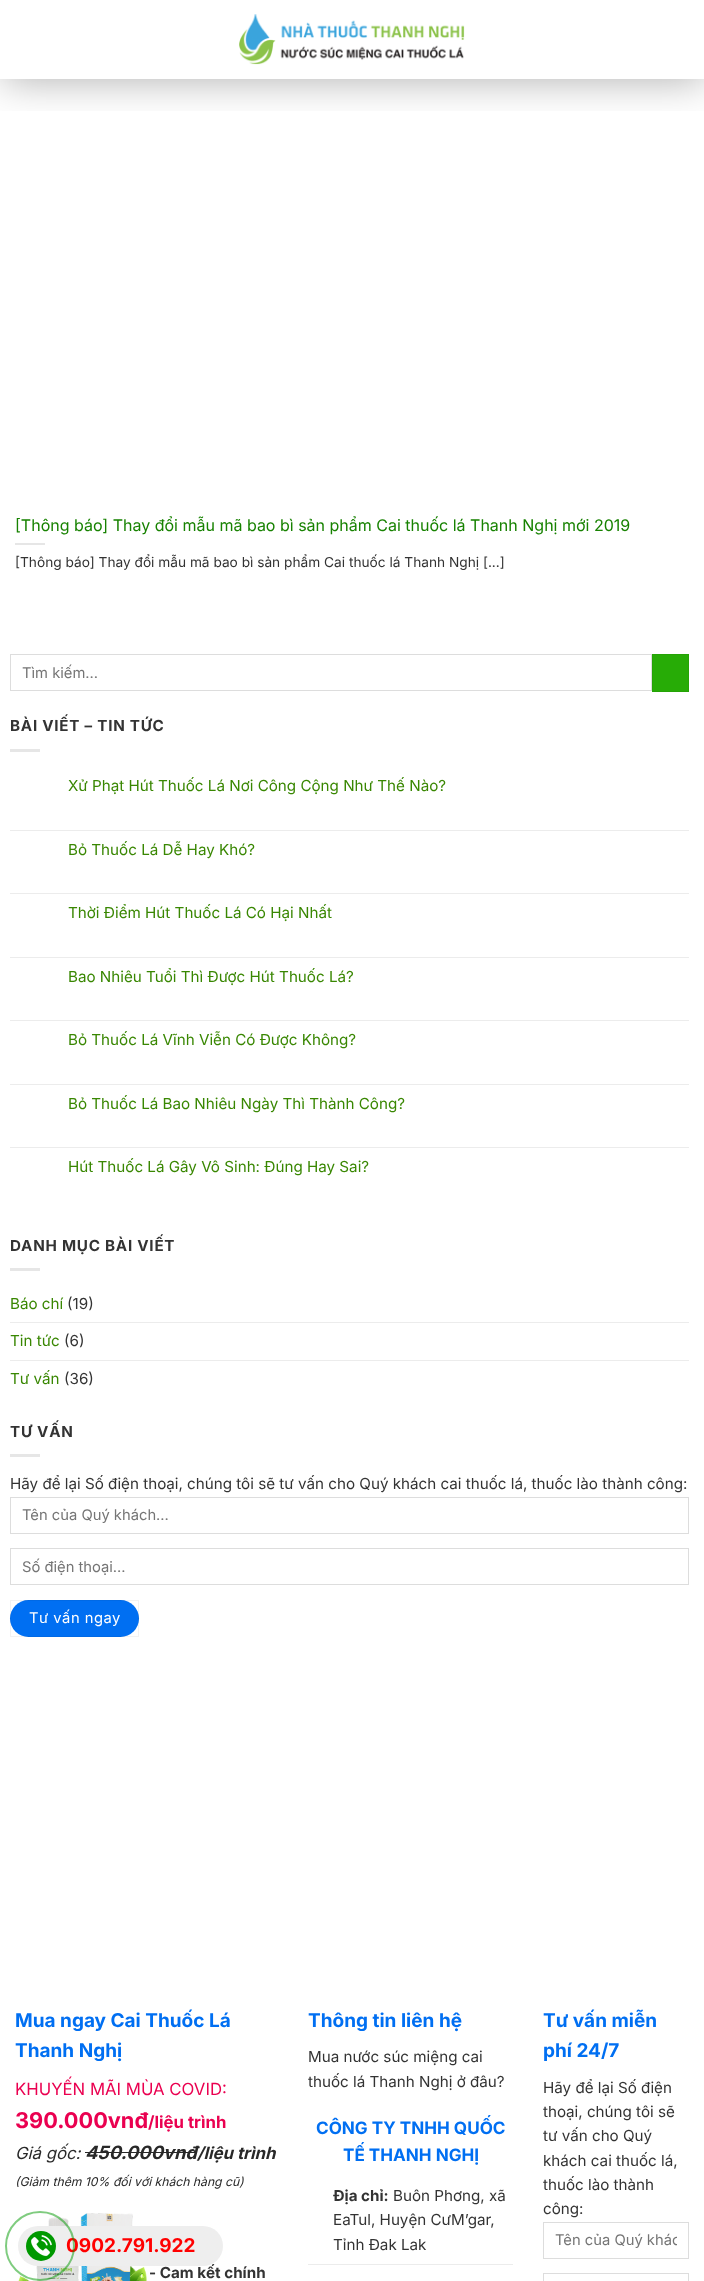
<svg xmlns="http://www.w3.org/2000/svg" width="704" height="2281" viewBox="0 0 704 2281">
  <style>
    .t1 { font: 16px Inter; fill: #178201; }
    .t2 { font: 13.7px Inter; fill: #333; }
    .t3 { font: 14.75px Inter; fill: #757575; }
    .t4 { font: bold 15.2px Inter; letter-spacing: 0.75px; fill: #333; }
    .t5 { font: 15.2px Inter; fill: #398702; }
    .t6 { font: 15.2px Inter; fill: #333; }
    .t7 { font: 14.75px Inter; letter-spacing: 0.5px; fill: #fff; }
    .t8 { font: bold 19px Inter; fill: #006ff2; }
    .t9 { font: 16.75px Inter; fill: #ea0050; }
    .t10 { font: bold 21.75px Inter; fill: #ea0050; }
    .t11 { font: bold 16.75px Inter; fill: #ea0050; }
    .t12 { font: italic 16.75px Inter; fill: #282828; }
    .t13 { font: italic bold 18.25px Inter; fill: #282828; }
    .t14 { font: italic bold 16.75px Inter; fill: #282828; }
    .t15 { font: italic 12.2px Inter; fill: #282828; }
    .t16 { font: bold 15.2px Inter; fill: #333; }
    .t17 { font: bold 17.1px Inter; fill: #006ff2; }
    .t18 { font: bold 19px Inter; fill: #f00; }
  </style>
  <defs>
    <clipPath id="clip1"><rect x="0" y="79" width="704" height="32"/></clipPath>
    <clipPath id="clip2"><rect x="555" y="2231" width="122" height="18"/></clipPath>
  </defs>
  <rect width="100%" height="100%" fill="#fff"/>
  <g clip-path="url(#clip1)">
    <rect x="2" y="2" width="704" height="79" fill="#0000004d" filter="blur(20px)"/>
  </g>
  <image x="239" y="14" width="226" height="51" href="images/1.png"/>
  <text x="15" y="531" class="t1">[Thông báo] Thay đổi mẫu mã bao bì sản phẩm Cai thuốc lá Thanh Nghị mới 2019</text>
  <rect x="15" y="543" width="30" height="2" fill="#e6e6e6"/>
  <text x="15" y="567" class="t2">[Thông báo] Thay đổi mẫu mã bao bì sản phẩm Cai thuốc lá Thanh Nghị [...]</text>
  <rect x="10.5" y="654.5" width="641" height="36" fill="none" stroke="#ddd"/>
  <text x="22" y="678" class="t3">Tìm kiếm…</text>
  <rect x="652.5" y="654.5" width="36" height="37" fill="#27ac06" stroke="#25a306"/>
  <text x="10" y="731" class="t4">BÀI VIẾT – TIN TỨC</text>
  <rect x="10" y="749" width="30" height="3" fill="#e6e6e6"/>
  <text x="68" y="791" class="t5">Xử Phạt Hút Thuốc Lá Nơi Công Cộng Như Thế Nào?</text>
  <rect x="10" y="830" width="679" height="1" fill="#ececec"/>
  <text x="68" y="855" class="t5">Bỏ Thuốc Lá Dễ Hay Khó?</text>
  <rect x="10" y="893" width="679" height="1" fill="#ececec"/>
  <text x="68" y="918" class="t5">Thời Điểm Hút Thuốc Lá Có Hại Nhất</text>
  <rect x="10" y="957" width="679" height="1" fill="#ececec"/>
  <text x="68" y="982" class="t5">Bao Nhiêu Tuổi Thì Được Hút Thuốc Lá?</text>
  <rect x="10" y="1020" width="679" height="1" fill="#ececec"/>
  <text x="68" y="1045" class="t5">Bỏ Thuốc Lá Vĩnh Viễn Có Được Không?</text>
  <rect x="10" y="1084" width="679" height="1" fill="#ececec"/>
  <text x="68" y="1109" class="t5">Bỏ Thuốc Lá Bao Nhiêu Ngày Thì Thành Công?</text>
  <rect x="10" y="1147" width="679" height="1" fill="#ececec"/>
  <text x="68" y="1172" class="t5">Hút Thuốc Lá Gây Vô Sinh: Đúng Hay Sai?</text>
  <text x="10" y="1251" class="t4">DANH MỤC BÀI VIẾT</text>
  <rect x="10" y="1268" width="30" height="3" fill="#e6e6e6"/>
  <text x="10" y="1309" class="t5">Báo chí</text>
  <text x="67" y="1309" class="t6">(19)</text>
  <rect x="10" y="1322" width="679" height="1" fill="#ececec"/>
  <text x="10" y="1346" class="t5">Tin tức</text>
  <text x="64" y="1346" class="t6">(6)</text>
  <rect x="10" y="1360" width="679" height="1" fill="#ececec"/>
  <text x="10" y="1384" class="t5">Tư vấn</text>
  <text x="64" y="1384" class="t6">(36)</text>
  <text x="10" y="1437" class="t4">TƯ VẤN</text>
  <rect x="10" y="1454" width="30" height="3" fill="#e6e6e6"/>
  <text x="10" y="1489" class="t6">Hãy để lại Số điện thoại, chúng tôi sẽ tư vấn cho Quý khách cai thuốc lá, thuốc lào thành công:</text>
  <rect x="10.5" y="1497.5" width="678" height="36" fill="none" stroke="#ddd"/>
  <text x="22" y="1520" class="t3">Tên của Quý khách...</text>
  <rect x="10.5" y="1548.5" width="678" height="36" fill="none" stroke="#ddd"/>
  <text x="22" y="1572" class="t3">Số điện thoại...</text>
  <rect x="10" y="1600" width="129" height="37" rx="18.5" fill="#006ff2"/>
  <rect x="10.5" y="1600.5" width="128" height="36" fill="none" stroke="#0000000d"/>
  <text x="29" y="1623" class="t7">Tư vấn ngay</text>
  <text x="15" y="2027" class="t8">Mua ngay Cai Thuốc Lá</text>
  <text x="15" y="2057" class="t8">Thanh Nghị</text>
  <text x="15" y="2095" class="t9">KHUYẾN MÃI MÙA COVID:</text>
  <text x="15" y="2128" class="t10">390.000vnđ</text>
  <text x="148" y="2128" class="t11">/liệu trình</text>
  <text x="15" y="2159" class="t12">Giá gốc:</text>
  <text x="85" y="2159" class="t13">450.000vnđ</text>
  <rect x="85" y="2152" width="112" height="1" fill="#282828"/>
  <text x="197" y="2159" class="t14">/liệu trình</text>
  <text x="15" y="2186" class="t15">(Giảm thêm 10% đối với khách hàng cũ)</text>
  <image x="18" y="2213" width="129" height="68" href="images/2.png"/>
  <text x="149" y="2278" class="t16">- Cam kết chính</text>
  <text x="308" y="2027" class="t8">Thông tin liên hệ</text>
  <text x="308" y="2062" class="t6">Mua nước súc miệng cai</text>
  <text x="308" y="2087" class="t6">thuốc lá Thanh Nghị ở đâu?</text>
  <text x="316" y="2134" class="t17">CÔNG TY TNHH QUỐC</text>
  <text x="343" y="2161" class="t17">TẾ THANH NGHỊ</text>
  <rect x="308" y="2264" width="205" height="1" fill="#ececec"/>
  <text x="333" y="2201" class="t16">Địa chỉ:</text>
  <text x="393" y="2201" class="t6">Buôn Phơng, xã</text>
  <text x="333" y="2225" class="t6">EaTul, Huyện CưM’gar,</text>
  <text x="333" y="2250" class="t6">Tỉnh Đak Lak</text>
  <text x="543" y="2027" class="t8">Tư vấn miễn</text>
  <text x="543" y="2057" class="t8">phí 24/7</text>
  <text x="543" y="2093" class="t6">Hãy để lại Số điện</text>
  <text x="543" y="2117" class="t6">thoại, chúng tôi sẽ</text>
  <text x="543" y="2141" class="t6">tư vấn cho Quý</text>
  <text x="543" y="2166" class="t6">khách cai thuốc lá,</text>
  <text x="543" y="2190" class="t6">thuốc lào thành</text>
  <text x="543" y="2214" class="t6">công:</text>
  <rect x="543.5" y="2222.5" width="145" height="36" fill="none" stroke="#ddd"/>
  <g clip-path="url(#clip2)">
    <text x="555" y="2245" class="t3">Tên của Quý khác</text>
  </g>
  <rect x="543.5" y="2273.5" width="145" height="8" fill="none" stroke="#ddd"/>
  <rect x="18" y="2226" width="205" height="40" rx="20" fill="#eee"/>
  <text x="66" y="2252" class="t18">0902.791.922</text>
  <circle cx="40" cy="2246" r="34" fill="none" stroke="#00990080" stroke-width="2"/>
  <circle cx="41" cy="2246" r="15" fill="#090"/>
  <image x="31" y="2235" width="21" height="22" href="images/3.png"/>
</svg>
